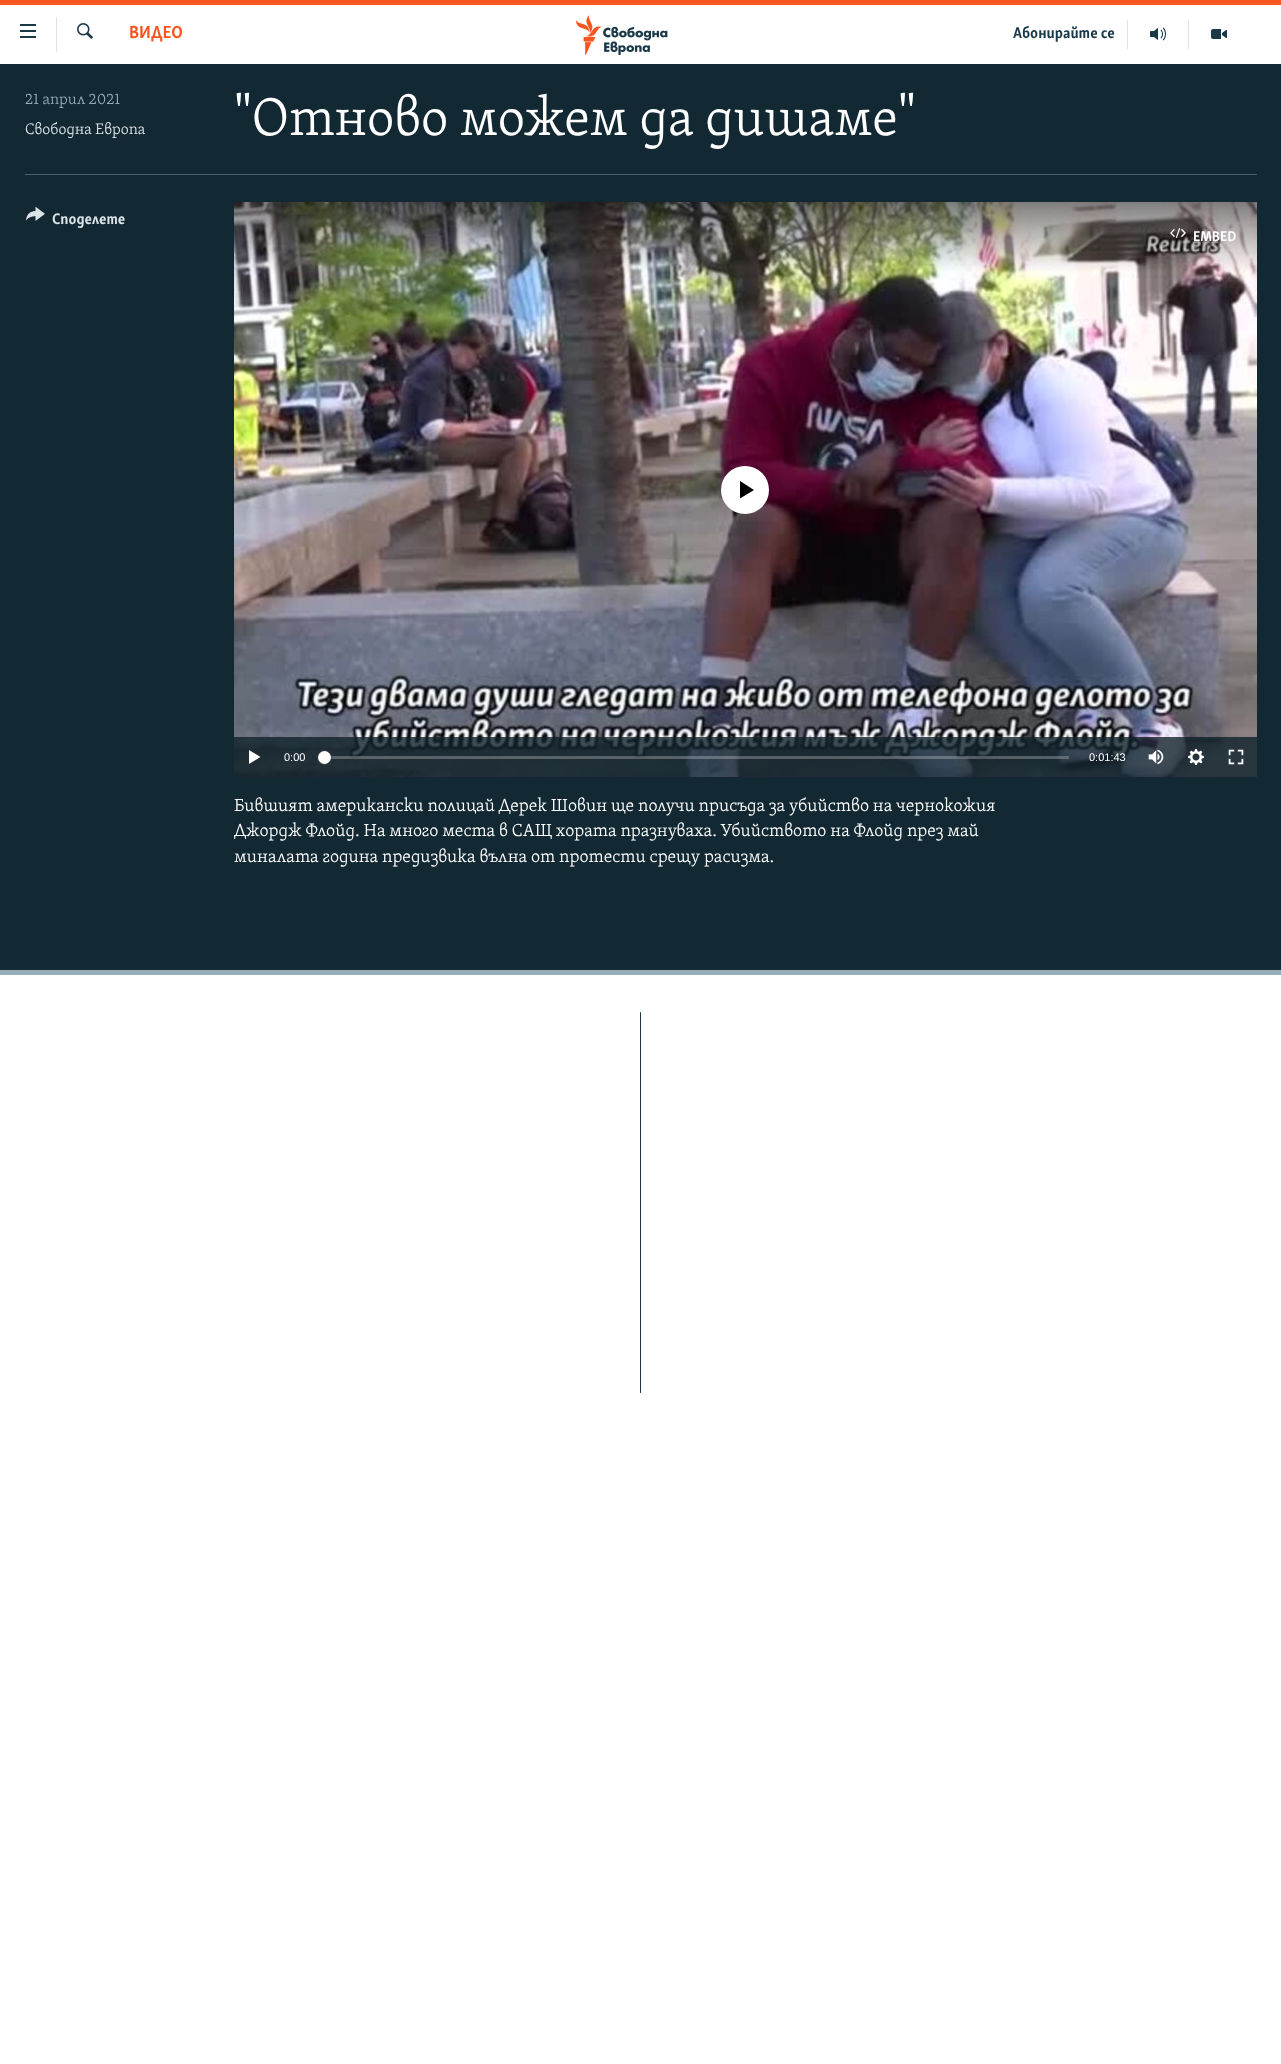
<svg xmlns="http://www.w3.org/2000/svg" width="1281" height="2064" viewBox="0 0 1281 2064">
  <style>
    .t1 { font: bold 18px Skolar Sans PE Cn; fill: #fa5420; }
    .t2 { font: bold 16px Skolar Sans PE Cn; fill: #1a3948; }
    .t3 { font: 300 15.75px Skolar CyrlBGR; fill: #95adb9; }
    .t4 { font: 300 15.75px Skolar CyrlBGR; fill: #dce4e8; }
    .t5 { font: 300 54px Skolar CyrlBGR; fill: #fff; }
    .t6 { font: bold 15.75px Skolar Sans PE Cn; fill: #dce4e8; }
    .t7 { font: bold 14.5px Skolar Sans PE Cn; fill: #fff; }
    .t8 { font: 11px Liberation Sans; fill: #fff; }
    .t9 { font: 300 18px Skolar CyrlBGR; fill: #fff; }
  </style>
  <rect width="100%" height="100%" fill="#fff"/>
  <rect x="0" y="0" width="1281" height="5" fill="#fa5420"/>
  <image x="20" y="24" width="16" height="14" href="images/1.png"/>
  <rect x="56" y="17" width="1" height="35" fill="#dce4e8"/>
  <image x="77" y="23" width="16" height="16" href="images/2.png"/>
  <text x="129" y="38" class="t1">ВИДЕО</text>
  <image x="576" y="15" width="92" height="40" href="images/3.png"/>
  <rect x="1127" y="20" width="1" height="29" fill="#dce4e8"/>
  <text x="1013" y="38" class="t2">Абонирайте се</text>
  <rect x="1188" y="20" width="1" height="29" fill="#dce4e8"/>
  <image x="1150" y="27" width="16" height="14" href="images/4.png"/>
  <image x="1211" y="29" width="16" height="10" href="images/5.png"/>
  <rect x="0" y="64" width="1281" height="906" fill="#122832"/>
  <rect x="0" y="970" width="1281" height="5" fill="#95adb9"/>
  <text x="25" y="104" class="t3">21 април 2021</text>
  <text x="25" y="134" class="t4">Свободна Европа</text>
  <text x="234" y="135" class="t5">"Отново можем да дишаме"</text>
  <rect x="25" y="174" width="1232" height="1" fill="#48616d"/>
  <image x="26" y="206" width="19" height="15" href="images/6.png"/>
  <text x="52" y="224" class="t6">Споделете</text>
  <image x="234" y="202" width="1023" height="575" href="images/7.png"/>
  <image x="1170" y="228" width="16" height="10" href="images/8.png"/>
  <text x="1193" y="241" class="t7">EMBED</text>
  <circle cx="745" cy="490" r="24" fill="#fff"/>
  <path d="M740 498.5L754 490L740 481Z" fill="#000"/>
  <rect x="234" y="737" width="1023" height="40" fill="#10222bcc"/>
  <path d="M249 764L260.5 757L249 750Z" fill="#fff"/>
  <text x="284" y="761" class="t8">0:00</text>
  <rect x="325" y="756" width="744" height="3" fill="#ffffff40"/>
  <rect x="318" y="751" width="13" height="13" rx="6.5" fill="#414144" filter="blur(1.5px)"/>
  <circle cx="324.5" cy="757.5" r="6.5" fill="#fff"/>
  <text x="1089" y="761" class="t8">0:01:43</text>
  <image x="1148" y="749" width="16" height="16" href="images/9.png"/>
  <image x="1188" y="749" width="16" height="16" href="images/10.png"/>
  <image x="1228" y="749" width="16" height="16" href="images/11.png"/>
  <text x="234" y="811" class="t9">Бившият американски полицай Дерек Шовин ще получи присъда за убийство на чернокожия</text>
  <text x="234" y="836" class="t9">Джордж Флойд. На много места в САЩ хората празнуваха. Убийството на Флойд през май</text>
  <text x="234" y="862" class="t9">миналата година предизвика вълна от протести срещу расизма.</text>
  <rect x="640" y="1012" width="1" height="381" rx="0.5" fill="#1a3948"/>
</svg>
